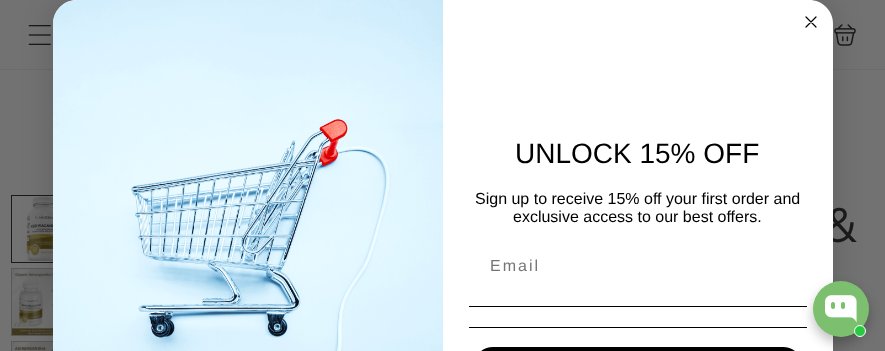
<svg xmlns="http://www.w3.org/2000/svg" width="885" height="351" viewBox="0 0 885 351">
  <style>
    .t1 { font: 200 48px Nunito Sans; letter-spacing: 1px; fill: #1a1a1a; }
    .t2 { font: 28px Liberation Sans; fill: #000; }
    .t3 { font: 16px Liberation Sans; fill: #000; }
    .t4 { font: 16px Liberation Sans; letter-spacing: 2px; fill: #767676; }
  </style>
  <rect width="100%" height="100%" fill="#727272"/>
  <rect x="0" y="69" width="885" height="1" fill="#6b6b6b"/>
  <image x="28" y="25" width="23" height="20" href="images/1.png"/>
  <image x="834" y="24" width="22" height="22" href="images/2.png"/>
  <rect x="11.5" y="195.5" width="67" height="67" fill="none" stroke="#1a1a1a"/>
  <image x="25" y="196" width="28" height="65" href="images/5.png"/>
  <rect x="11.5" y="268.5" width="67" height="67" fill="none" stroke="#585858"/>
  <image x="12" y="269" width="41" height="66" href="images/6.png"/>
  <rect x="11.5" y="341.5" width="67" height="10" fill="none" stroke="#585858"/>
  <image x="12" y="342" width="41" height="9" href="images/7.png"/>
  <rect x="53" y="0" width="780" height="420" rx="24" fill="#00000026" filter="blur(15px)"/>
  <text x="824" y="242" class="t1">&amp;</text>
  <path d="M77 0H809C822.5 0 833 10.5 833 24V351H53V24C53 10.5 63.5 0 77 0Z" fill="#fff"/>
  <path d="M806 17L816 27M806 27L816 17Z" fill="none" stroke="#000" stroke-width="1.2" stroke-linecap="round" stroke-linejoin="round"/>
  <image x="53" y="0" width="390" height="351" href="images/3.png"/>
  <text x="515" y="163" class="t2">UNLOCK 15% OFF</text>
  <text x="475" y="204" class="t3">Sign up to receive 15% off your first order and</text>
  <text x="513" y="222" class="t3">exclusive access to our best offers.</text>
  <text x="490" y="271" class="t4">Email</text>
  <image x="469" y="306" width="338" height="1" href="images/4.png"/>
  <image x="469" y="327" width="338" height="1" href="images/4.png"/>
  <path d="M493 347H783C794 347 803 356 803 367V351H473V367C473 356 482 347 493 347Z" fill="#000"/>
  <rect x="813" y="287" width="56" height="56" rx="28" fill="#00000040" filter="blur(6px)"/>
  <circle cx="841" cy="309" r="28" fill="#7bbf6f"/>
  <image x="825" y="295" width="32" height="28" href="images/8.png"/>
  <circle cx="860" cy="331" r="5.5" fill="#27ca40" stroke="#fff"/>
</svg>
